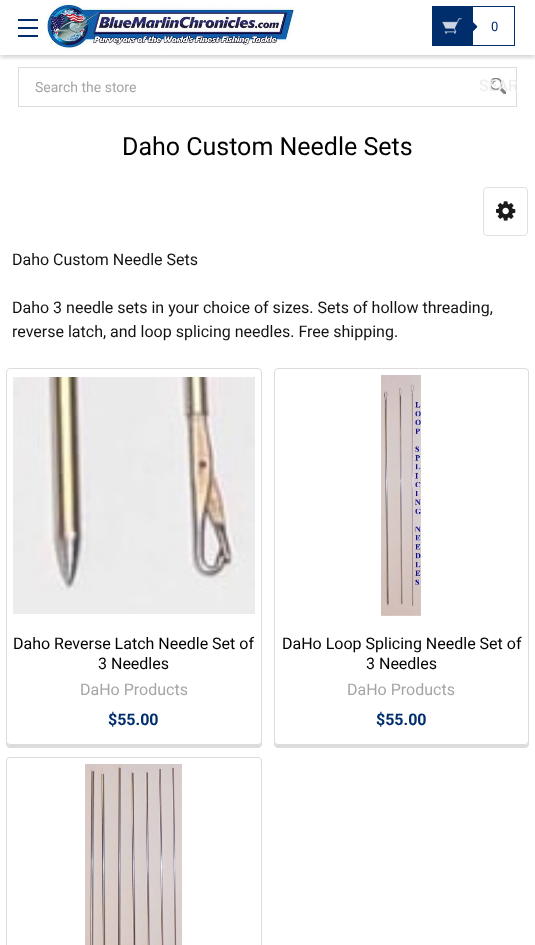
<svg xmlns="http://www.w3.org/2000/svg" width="535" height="945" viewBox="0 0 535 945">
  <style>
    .t1 { font: 13px Roboto; fill: #002e6c; }
    .t2 { font: 14px Roboto; fill: #a5a5a5; }
    .t3 { font: 16px Roboto; fill: #ececec; }
    .t4 { font: 25px Roboto; fill: #000; }
    .t5 { font: 16px Roboto; fill: #131313; }
    .t6 { font: 16px Roboto; fill: #000; }
    .t7 { font: 16px Roboto; fill: #a5a5a5; }
    .t8 { font: bold 16px Roboto; fill: #002e6c; }
  </style>
  <defs>
    <clipPath id="clip1"><rect x="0" y="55" width="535" height="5"/></clipPath>
  </defs>
  <rect width="100%" height="100%" fill="#fff"/>
  <g clip-path="url(#clip1)">
    <rect x="0" y="2" width="535" height="55" fill="#00000033" filter="blur(2.5px)"/>
  </g>
  <rect x="18" y="27" width="20" height="2" fill="#002e6c"/>
  <rect x="18" y="19" width="20" height="2" fill="#002e6c"/>
  <rect x="18" y="35" width="20" height="2" fill="#002e6c"/>
  <image x="46" y="3" width="249" height="46" href="images/1.png"/>
  <image x="433" y="7" width="45" height="38" href="images/2.png"/>
  <rect x="432.5" y="6.5" width="82" height="39" fill="none" stroke="#002e6c"/>
  <text x="491" y="31" class="t1">0</text>
  <rect x="18.5" y="67.5" width="498" height="39" fill="none" stroke="#dcdcdc"/>
  <text x="35" y="92" class="t2">Search the store</text>
  <image x="490" y="78" width="16" height="16" href="images/3.png"/>
  <text x="479" y="91" class="t3">SEAR</text>
  <text x="122" y="155" class="t4">Daho Custom Needle Sets</text>
  <rect x="483.5" y="187.5" width="44" height="48" rx="3.5" fill="none" stroke="#e0e1e4"/>
  <image x="496" y="201" width="20" height="20" href="images/4.png"/>
  <text x="12" y="265" class="t5">Daho Custom Needle Sets</text>
  <text x="12" y="313" class="t5">Daho 3 needle sets in your choice of sizes. Sets of hollow threading,</text>
  <text x="12" y="337" class="t5">reverse latch, and loop splicing needles. Free shipping.</text>
  <path d="M6 741V744C6 746 8 748 10 748H258C260 748 262 746 262 744V741C262 743 260 745 258 745H10C8 745 6 743 6 741Z" fill="#dcdcdc"/>
  <rect x="6.5" y="368.5" width="255" height="376" rx="3.5" fill="#fff" stroke="#dcdcdc"/>
  <image x="13" y="377" width="242" height="237" href="images/5.png"/>
  <text x="13" y="649" class="t6">Daho Reverse Latch Needle Set of</text>
  <text x="98" y="669" class="t6">3 Needles</text>
  <text x="80" y="695" class="t7">DaHo Products</text>
  <text x="108" y="725" class="t8">$55.00</text>
  <path d="M274 741V744C274 746 276 748 278 748H525C527 748 529 746 529 744V741C529 743 527 745 525 745H278C276 745 274 743 274 741Z" fill="#dcdcdc"/>
  <rect x="274.5" y="368.5" width="254" height="376" rx="3.5" fill="#fff" stroke="#dcdcdc"/>
  <image x="381" y="375" width="40" height="241" href="images/6.png"/>
  <text x="282" y="649" class="t6">DaHo Loop Splicing Needle Set of</text>
  <text x="366" y="669" class="t6">3 Needles</text>
  <text x="347" y="695" class="t7">DaHo Products</text>
  <text x="376" y="725" class="t8">$55.00</text>
  <rect x="6.5" y="757.5" width="255" height="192" rx="3.5" fill="none" stroke="#dcdcdc"/>
  <image x="85" y="764" width="97" height="181" href="images/7.png"/>
</svg>
